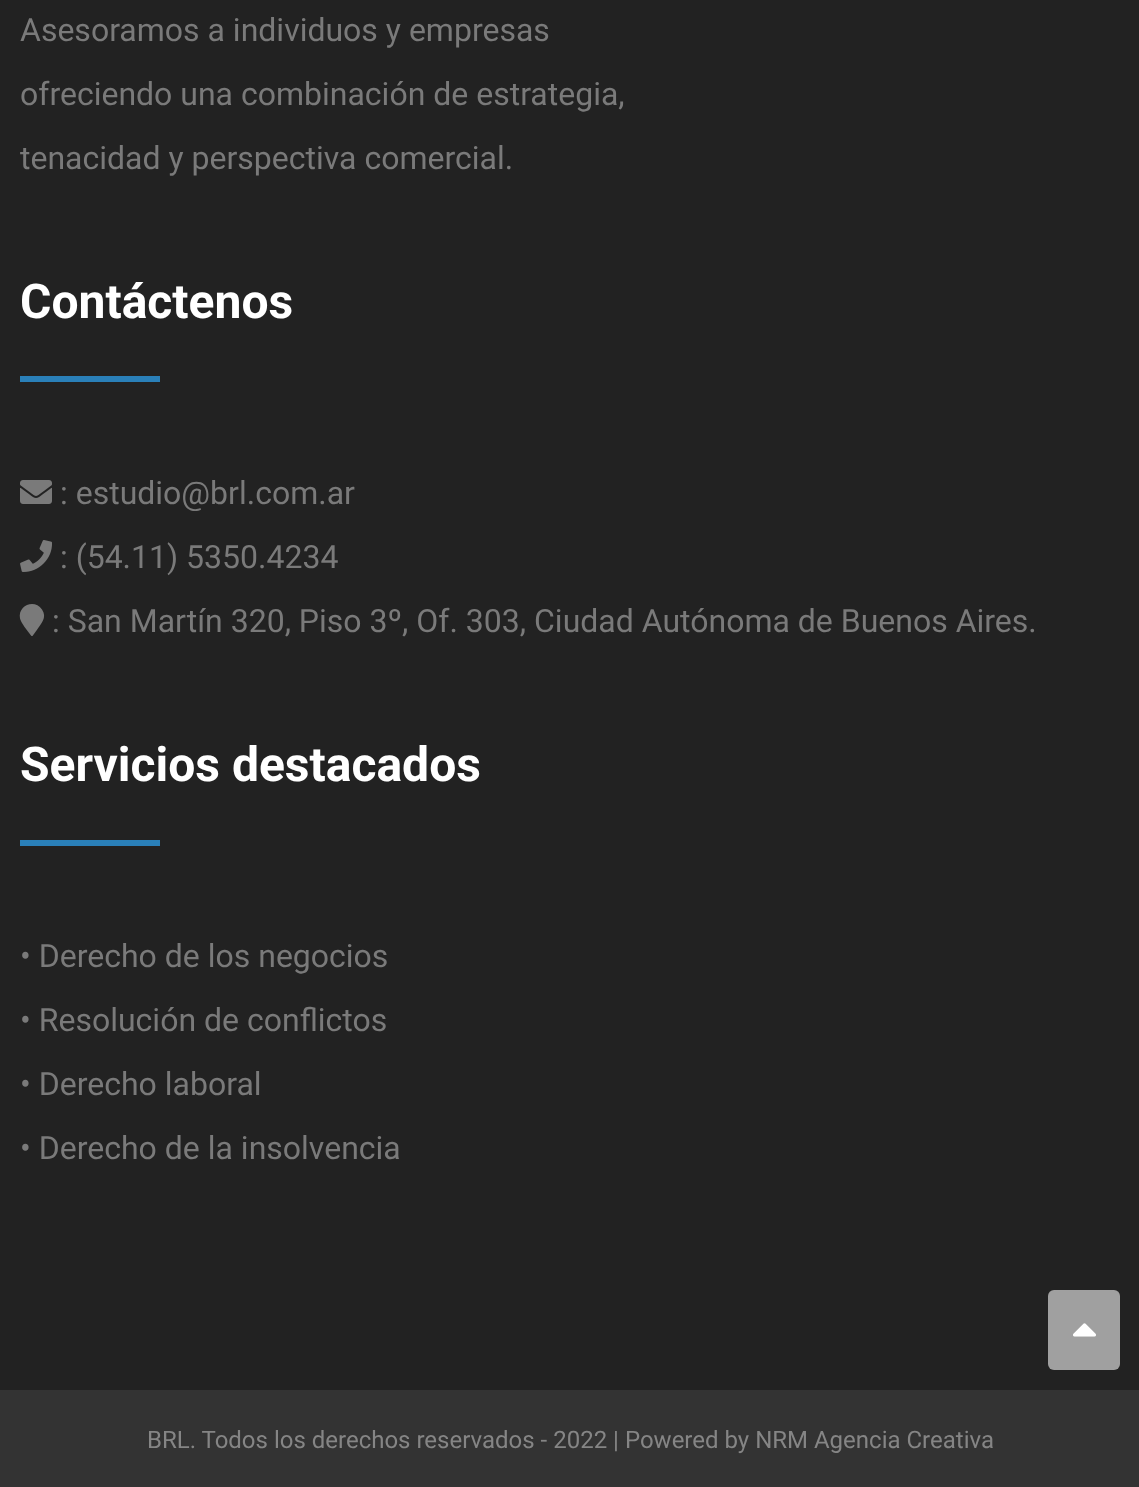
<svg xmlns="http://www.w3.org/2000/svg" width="1139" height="1487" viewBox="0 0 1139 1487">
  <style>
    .t1 { font: 32px Roboto; fill: #7a7a7a; }
    .t2 { font: bold 48px Roboto; fill: #fff; }
    .t3 { font: 24px Roboto; fill: #858585; }
  </style>
  <rect width="100%" height="100%" fill="#222"/>
  <text x="20" y="41" class="t1">Asesoramos a individuos y empresas</text>
  <text x="20" y="105" class="t1">ofreciendo una combinación de estrategia,</text>
  <text x="20" y="169" class="t1">tenacidad y perspectiva comercial.</text>
  <text x="20" y="318" class="t2">Contáctenos</text>
  <rect x="20" y="376" width="140" height="6" fill="#2a80b9"/>
  <image x="20" y="480" width="32" height="24" href="images/1.png"/>
  <text x="60" y="504" class="t1">: estudio@brl.com.ar</text>
  <image x="20" y="540" width="32" height="32" href="images/2.png"/>
  <text x="60" y="568" class="t1">: (54.11) 5350.4234</text>
  <path d="M31 635.5C28 631.5 21 623 20 618.5C17.5 605.5 34.5 598.5 42 609.5C47.5 617.5 41 624 36.5 630.5L32.5 636C32 636 31 636 31 635.5Z" fill="#7a7a7a"/>
  <text x="52" y="632" class="t1">: San Martín 320, Piso 3º, Of. 303, Ciudad Autónoma de Buenos Aires.</text>
  <text x="20" y="781" class="t2">Servicios destacados</text>
  <rect x="20" y="840" width="140" height="6" fill="#2a80b9"/>
  <text x="20" y="967" class="t1">• Derecho de los negocios</text>
  <text x="20" y="1031" class="t1">• Resolución de conflictos</text>
  <text x="20" y="1095" class="t1">• Derecho laboral</text>
  <text x="20" y="1159" class="t1">• Derecho de la insolvencia</text>
  <rect x="1048" y="1290" width="72" height="80" rx="6" fill="#a0a0a0"/>
  <image x="1073" y="1323" width="23" height="14" href="images/3.png"/>
  <rect x="0" y="1390" width="1139" height="97" fill="#333"/>
  <text x="147" y="1448" class="t3">BRL. Todos los derechos reservados - 2022 | Powered by NRM Agencia Creativa</text>
</svg>
